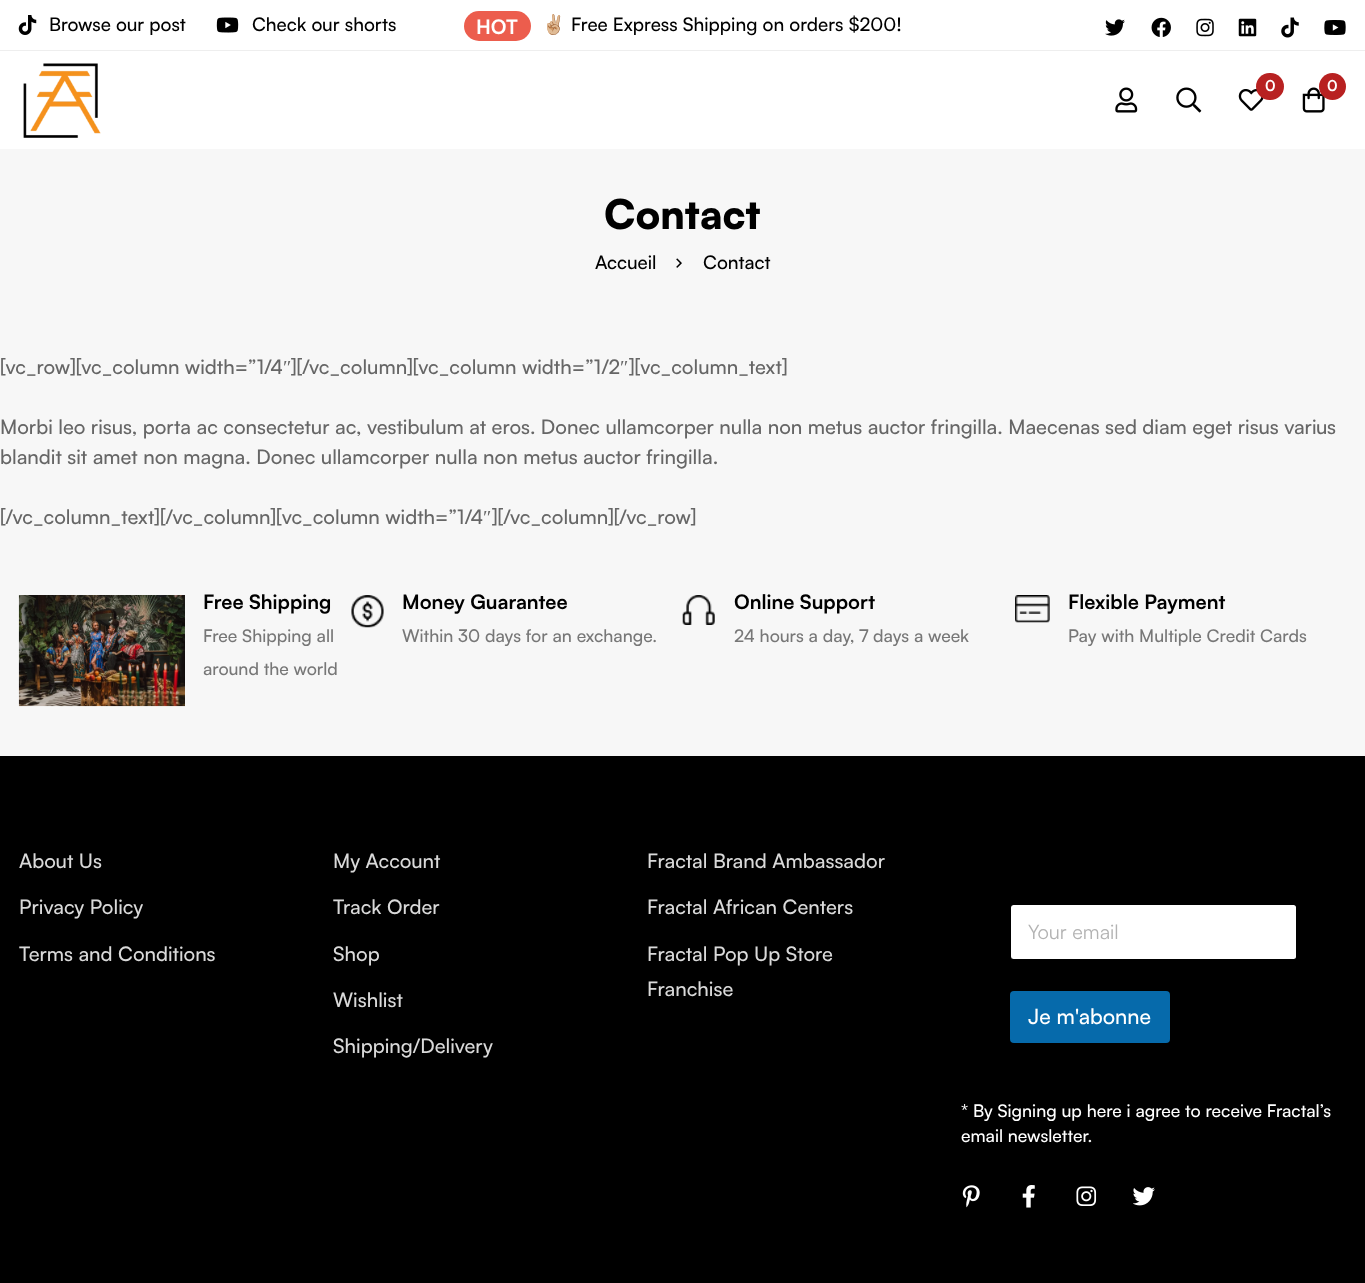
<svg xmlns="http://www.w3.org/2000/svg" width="1365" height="1283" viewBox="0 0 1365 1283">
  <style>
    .t1 { font: 500 18.75px Satoshi; fill: #000; }
    .t2 { font: bold 20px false; fill: #fff; }
    .t3 { font: 18.75px Noto Color Emoji; fill: #000; }
    .t4 { font: bold 15px false; fill: #fff; }
    .t5 { font: 900 40.5px Satoshi; fill: #000; }
    .t6 { font: 500 20px Satoshi; fill: #666; }
    .t7 { font: 20px Liberation Serif; fill: #666; }
    .t8 { font: bold 20px false; fill: #000; }
    .t9 { font: 500 17.5px Satoshi; fill: #777; }
    .t10 { font: 500 20px Satoshi; fill: #d9d9d9; }
    .t11 { font: 20px false; fill: #b3b3b3; }
    .t12 { font: 500 21.25px Satoshi; fill: #fff; }
    .t13 { font: 500 17.5px Satoshi; fill: #fff; }
  </style>
  <rect width="100%" height="100%" fill="#f7f7f7"/>
  <rect x="0" y="0" width="1365" height="149" fill="#fff"/>
  <rect x="0" y="50" width="1365" height="1" fill="#eee"/>
  <image x="18" y="15" width="19" height="20" href="images/1.png"/>
  <text x="49" y="31" class="t1">Browse our post</text>
  <image x="216" y="17" width="23" height="16" href="images/2.png"/>
  <text x="252" y="31" class="t1">Check our shorts</text>
  <rect x="464" y="11" width="67" height="30" rx="15" fill="#ec5d4d"/>
  <text x="476" y="34" class="t2">HOT</text>
  <text x="542" y="31" class="t3">✌🏼</text>
  <text x="571" y="31" class="t1">Free Express Shipping on orders $200!</text>
  <image x="1105" y="19" width="20" height="17" href="images/3.png"/>
  <image x="1151" y="17" width="20" height="20" href="images/4.png"/>
  <image x="1196" y="18" width="18" height="19" href="images/5.png"/>
  <image x="1238" y="18" width="19" height="19" href="images/6.png"/>
  <image x="1281" y="17" width="18" height="21" href="images/7.png"/>
  <image x="1324" y="20" width="22" height="15" href="images/8.png"/>
  <image x="23" y="63" width="78" height="75" href="images/9.png"/>
  <image x="1238" y="89" width="26" height="22" href="images/10.png"/>
  <rect x="1256" y="73" width="28" height="27" rx="13.5" fill="#b82121"/>
  <text x="1265" y="91" class="t4">0</text>
  <image x="1302" y="87" width="23" height="26" href="images/11.png"/>
  <circle cx="1332.5" cy="86.5" r="13.5" fill="#b82121"/>
  <text x="1327" y="91" class="t4">0</text>
  <image x="1115" y="87" width="23" height="26" href="images/12.png"/>
  <image x="1176" y="87" width="26" height="26" href="images/13.png"/>
  <text x="604" y="229" class="t5">Contact</text>
  <text x="595" y="269" class="t1">Accueil</text>
  <image x="676" y="258" width="6" height="10" href="images/14.png"/>
  <text x="703" y="269" class="t1">Contact</text>
  <text x="0" y="374" class="t6">[vc_row][vc_column width=”1/4</text>
  <text x="283" y="374" class="t7">″</text>
  <text x="291" y="374" class="t6">][/vc_column][vc_column width=”1/2</text>
  <text x="620" y="374" class="t7">″</text>
  <text x="629" y="374" class="t6">][vc_column_text]</text>
  <text x="0" y="434" class="t6">Morbi leo risus, porta ac consectetur ac, vestibulum at eros. Donec ullamcorper nulla non metus auctor fringilla. Maecenas sed diam eget risus varius</text>
  <text x="0" y="464" class="t6">blandit sit amet non magna. Donec ullamcorper nulla non metus auctor fringilla.</text>
  <text x="0" y="524" class="t6">[/vc_column_text][/vc_column][vc_column width=”1/4</text>
  <text x="483" y="524" class="t7">″</text>
  <text x="492" y="524" class="t6">][/vc_column][/vc_row]</text>
  <image x="18" y="595" width="167" height="112" href="images/15.png"/>
  <text x="203" y="609" class="t8">Free Shipping</text>
  <text x="203" y="642" class="t9">Free Shipping all</text>
  <text x="203" y="675" class="t9">around the world</text>
  <image x="351" y="595" width="33" height="33" href="images/16.png"/>
  <text x="402" y="609" class="t8">Money Guarantee</text>
  <text x="402" y="642" class="t9">Within 30 days for an exchange.</text>
  <image x="682" y="595" width="33" height="30" href="images/17.png"/>
  <text x="734" y="609" class="t8">Online Support</text>
  <text x="734" y="642" class="t9">24 hours a day, 7 days a week</text>
  <image x="1015" y="595" width="35" height="28" href="images/18.png"/>
  <text x="1068" y="609" class="t8">Flexible Payment</text>
  <text x="1068" y="642" class="t9">Pay with Multiple Credit Cards</text>
  <rect x="0" y="756" width="1365" height="527" fill="#000"/>
  <text x="19" y="868" class="t10">About Us</text>
  <text x="19" y="914" class="t10">Privacy Policy</text>
  <text x="19" y="961" class="t10">Terms and Conditions</text>
  <text x="333" y="868" class="t10">My Account</text>
  <text x="333" y="914" class="t10">Track Order</text>
  <text x="333" y="961" class="t10">Shop</text>
  <text x="333" y="1007" class="t10">Wishlist</text>
  <text x="333" y="1053" class="t10">Shipping/Delivery</text>
  <text x="647" y="868" class="t10">Fractal Brand Ambassador</text>
  <text x="647" y="914" class="t10">Fractal African Centers</text>
  <text x="647" y="961" class="t10">Fractal Pop Up Store</text>
  <text x="647" y="996" class="t10">Franchise</text>
  <rect x="1011" y="905" width="285" height="54" rx="2.5" fill="#fff"/>
  <rect x="1010.5" y="904.5" width="287" height="55" rx="3.5" fill="none" stroke="#00000040"/>
  <text x="1028" y="939" class="t11">Your email</text>
  <rect x="1010" y="991" width="160" height="52" rx="4" fill="#066aab"/>
  <text x="1028" y="1024" class="t12">Je m'abonne</text>
  <text x="961" y="1117" class="t13">* By Signing up here i agree to receive Fractal’s</text>
  <text x="961" y="1142" class="t13">email newsletter.</text>
  <image x="962" y="1185" width="18" height="23" href="images/19.png"/>
  <image x="1022" y="1185" width="13" height="23" href="images/20.png"/>
  <image x="1076" y="1186" width="21" height="20" href="images/21.png"/>
  <image x="1133" y="1187" width="22" height="19" href="images/22.png"/>
</svg>
